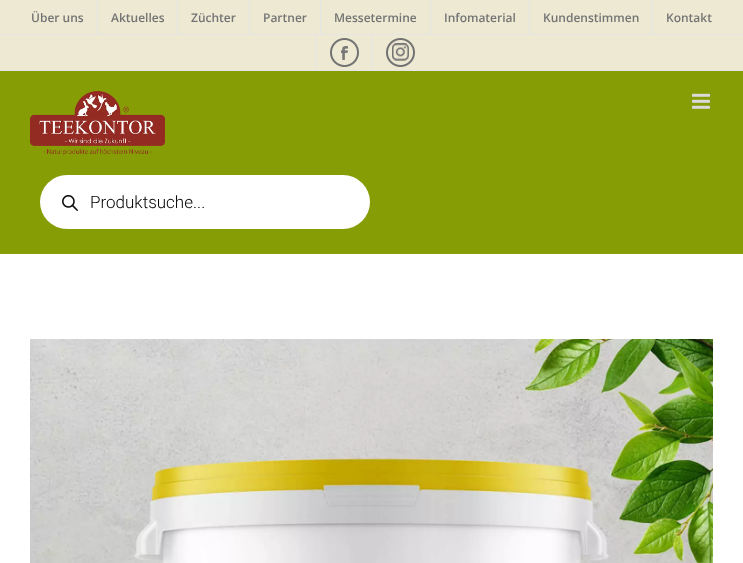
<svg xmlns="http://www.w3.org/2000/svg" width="743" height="563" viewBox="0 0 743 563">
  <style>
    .t1 { font: 600 12px Open Sans; fill: #747474; }
    .t2 { font: 300 17px Roboto; fill: #000; }
  </style>
  <rect width="100%" height="100%" fill="#fff"/>
  <rect x="0" y="0" width="743" height="70" fill="#ede9d3"/>
  <rect x="0" y="70" width="743" height="1" fill="#e5e5e5"/>
  <text x="31" y="22" class="t1">Über uns</text>
  <rect x="97" y="0" width="1" height="35" fill="#e5e5e5"/>
  <text x="111" y="22" class="t1">Aktuelles</text>
  <rect x="177" y="0" width="1" height="35" fill="#e5e5e5"/>
  <text x="191" y="22" class="t1">Züchter</text>
  <rect x="249" y="0" width="1" height="35" fill="#e5e5e5"/>
  <text x="263" y="22" class="t1">Partner</text>
  <rect x="320" y="0" width="1" height="35" fill="#e5e5e5"/>
  <text x="334" y="22" class="t1">Messetermine</text>
  <rect x="430" y="0" width="1" height="35" fill="#e5e5e5"/>
  <text x="444" y="22" class="t1">Infomaterial</text>
  <rect x="529" y="0" width="1" height="35" fill="#e5e5e5"/>
  <text x="543" y="22" class="t1">Kundenstimmen</text>
  <rect x="652" y="0" width="1" height="35" fill="#e5e5e5"/>
  <text x="666" y="22" class="t1">Kontakt</text>
  <rect x="0" y="34" width="743" height="1" fill="#e5e5e5"/>
  <rect x="316" y="35" width="1" height="35" fill="#e5e5e5"/>
  <image x="330" y="38" width="29" height="29" href="images/1.png"/>
  <rect x="372" y="35" width="1" height="35" fill="#e5e5e5"/>
  <image x="386" y="38" width="29" height="29" href="images/2.png"/>
  <rect x="0" y="71" width="743" height="183" fill="#879d06"/>
  <image x="692" y="93" width="18" height="16" href="images/3.png"/>
  <image x="30" y="91" width="135" height="64" href="images/4.png"/>
  <rect x="40" y="175" width="330" height="54" rx="27" fill="#fff"/>
  <image x="62" y="195" width="16" height="16" href="images/5.png"/>
  <text x="90" y="208" class="t2">Produktsuche...</text>
  <image x="30" y="339" width="683" height="224" href="images/6.png"/>
</svg>
